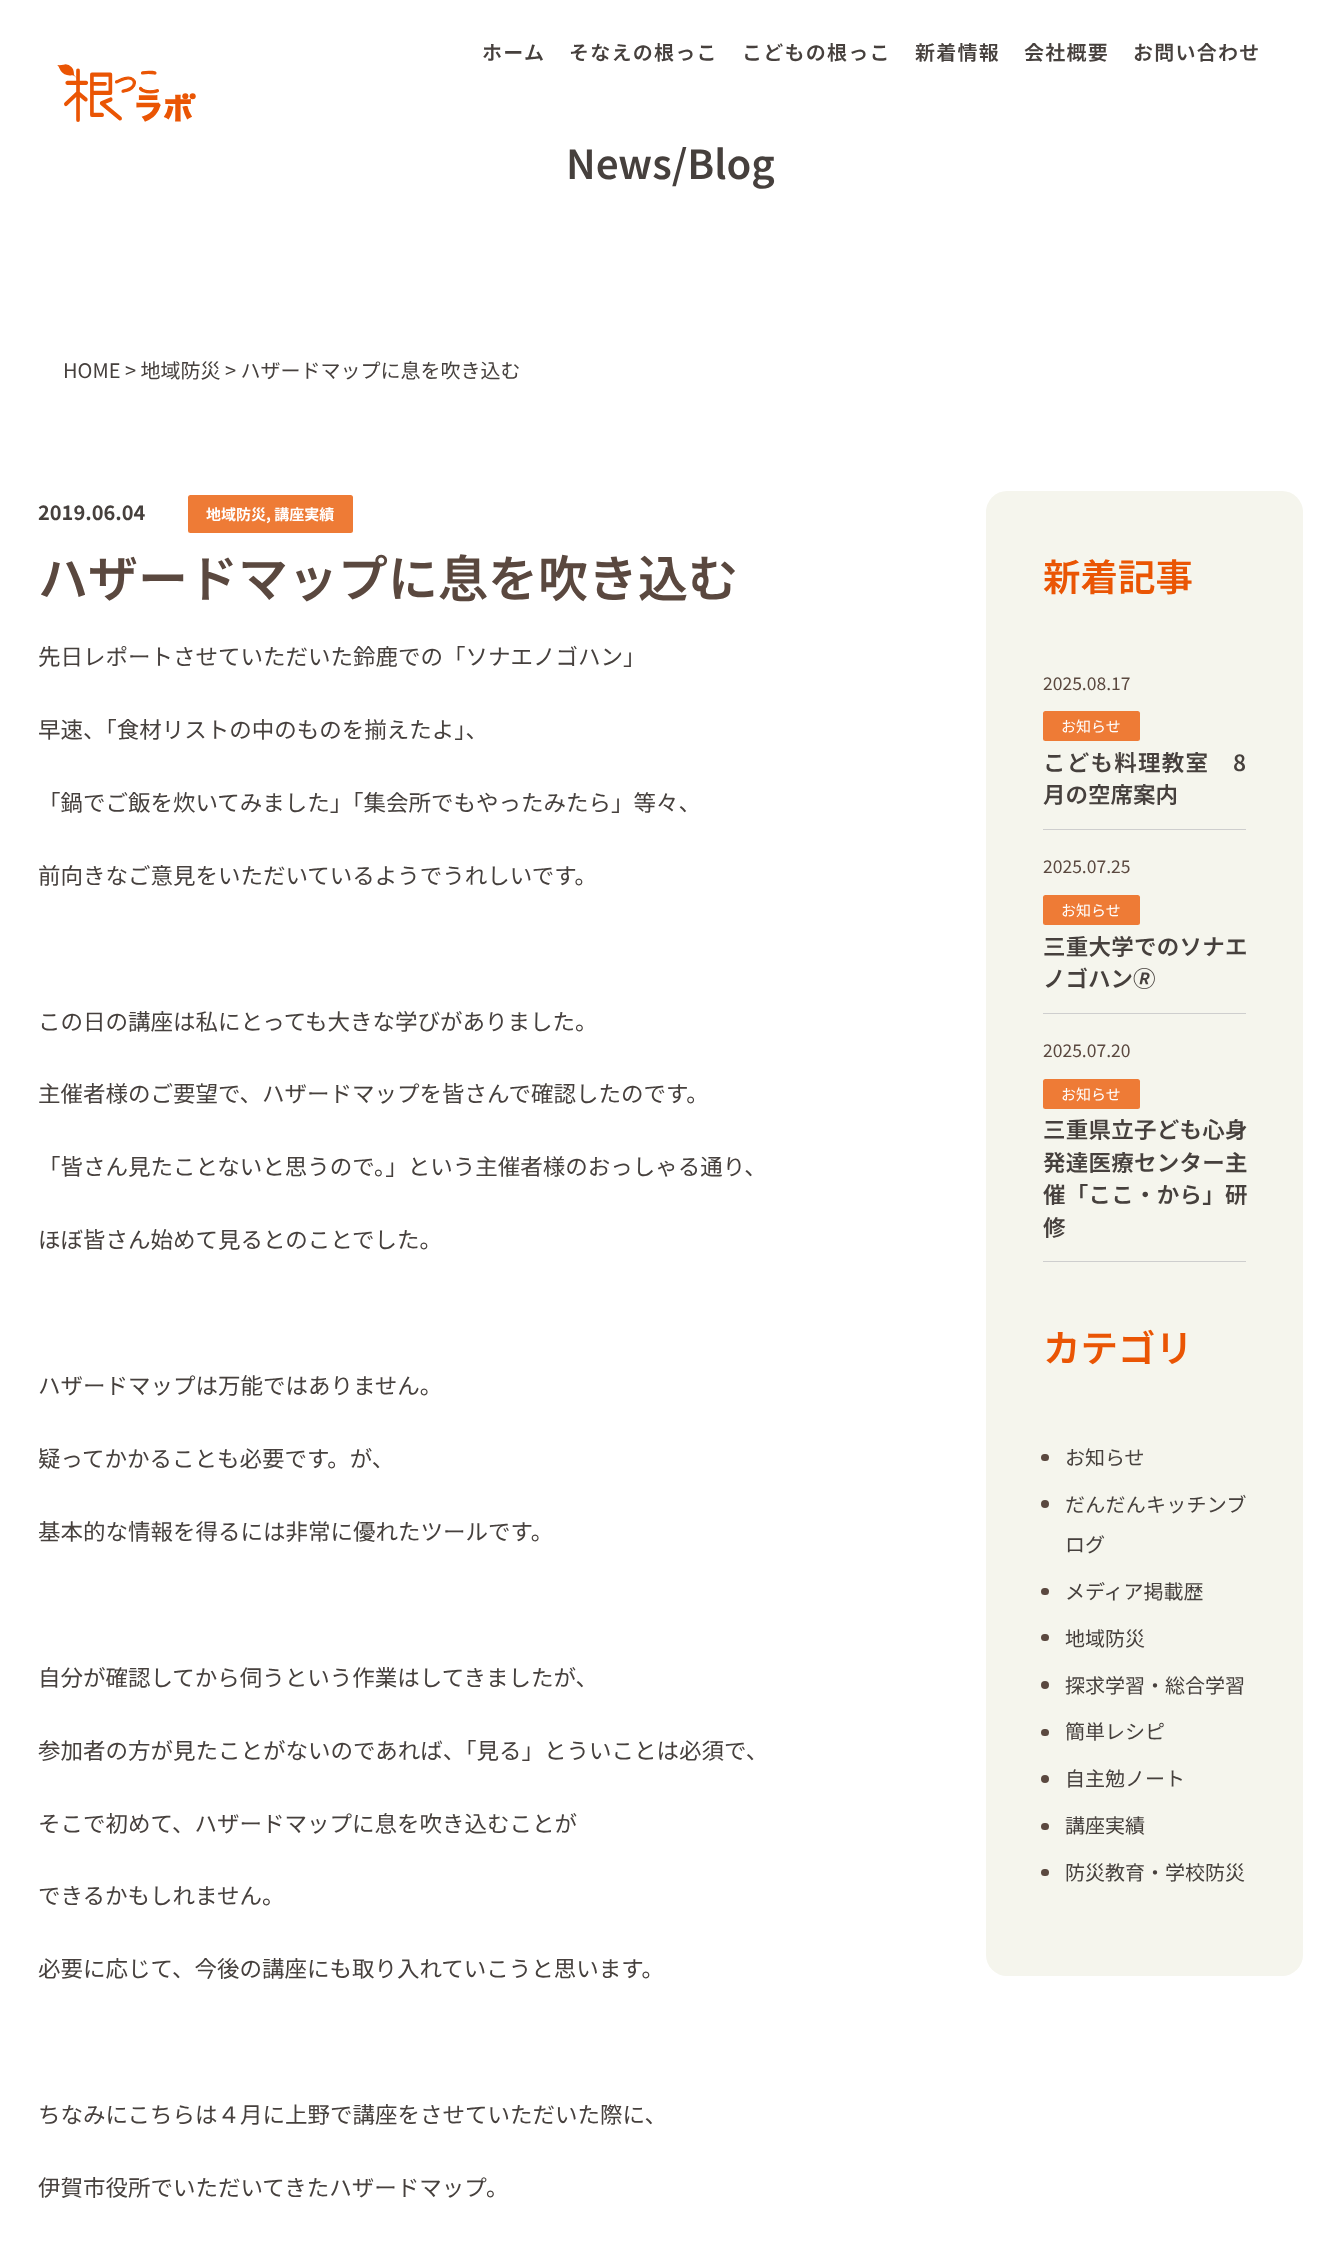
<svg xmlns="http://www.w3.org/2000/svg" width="1339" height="2251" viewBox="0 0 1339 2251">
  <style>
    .t1 { font: 600 20px Noto Sans JP; letter-spacing: 1.25px; fill: #46403d; }
    .t2 { font: 600 40px Noto Sans JP; fill: #46403d; }
    .t3 { font: 20px Noto Sans JP; fill: #46403d; }
    .t4 { font: bold 20px Noto Sans JP; fill: #46403d; }
    .t5 { font: bold 15px Noto Sans JP; fill: #fff; }
    .t6 { font: 600 50px Noto Sans JP; fill: #5a483f; }
    .t7 { font: 22.5px Noto Sans JP; fill: #46403d; }
    .t8 { font: 600 37.5px Noto Sans JP; fill: #ea5504; }
    .t9 { font: 17.5px Noto Sans JP; fill: #5a483f; }
    .t10 { font: 15px Noto Sans JP; fill: #fff; }
    .t11 { font: 600 22.5px Noto Sans JP; letter-spacing: 1.25px; fill: #46403d; }
    .t12 { font: 600 22.5px Noto Sans JP; fill: #46403d; }
    .t13 { font: 600 22.5px Noto Sans JP; letter-spacing: 0.25px; fill: #46403d; }
    .t14 { font: 20px Noto Sans JP; letter-spacing: 0.25px; fill: #46403d; }
  </style>
  <rect width="100%" height="100%" fill="#fff"/>
  <text x="482" y="60" class="t1">ホーム</text>
  <text x="569" y="60" class="t1">そなえの根っこ</text>
  <text x="742" y="60" class="t1">こどもの根っこ</text>
  <text x="915" y="60" class="t1">新着情報</text>
  <text x="1024" y="60" class="t1">会社概要</text>
  <text x="1133" y="60" class="t1">お問い合わせ</text>
  <image x="57" y="64" width="139" height="58" href="images/1.png"/>
  <text x="566" y="179" class="t2">News/Blog</text>
  <text x="63" y="378" class="t3">HOME &gt; 地域防災 &gt; ハザードマップに息を吹き込む</text>
  <text x="38" y="520" class="t4">2019.06.04</text>
  <rect x="188" y="495" width="165" height="38" rx="2.5" fill="#ee7b36"/>
  <text x="206" y="520" class="t5">地域防災, 講座実績</text>
  <text x="38" y="597" class="t6">ハザードマップに息を吹き込む</text>
  <text x="38" y="665" class="t7">先日レポートさせていただいた鈴鹿での「ソナエノゴハン」</text>
  <text x="38" y="738" class="t7">早速、「食材リストの中のものを揃えたよ」、</text>
  <text x="38" y="811" class="t7">「鍋でご飯を炊いてみました」「集会所でもやったみたら」等々、</text>
  <text x="38" y="884" class="t7">前向きなご意見をいただいているようでうれしいです。</text>
  <text x="38" y="1030" class="t7">この日の講座は私にとっても大きな学びがありました。</text>
  <text x="38" y="1102" class="t7">主催者様のご要望で、ハザードマップを皆さんで確認したのです。</text>
  <text x="38" y="1175" class="t7">「皆さん見たことないと思うので。」という主催者様のおっしゃる通り、</text>
  <text x="38" y="1248" class="t7">ほぼ皆さん始めて見るとのことでした。</text>
  <text x="38" y="1394" class="t7">ハザードマップは万能ではありません。</text>
  <text x="38" y="1467" class="t7">疑ってかかることも必要です。が、</text>
  <text x="38" y="1540" class="t7">基本的な情報を得るには非常に優れたツールです。</text>
  <text x="38" y="1686" class="t7">自分が確認してから伺うという作業はしてきましたが、</text>
  <text x="38" y="1759" class="t7">参加者の方が見たことがないのであれば、「見る」とういことは必須で、</text>
  <text x="38" y="1832" class="t7">そこで初めて、ハザードマップに息を吹き込むことが</text>
  <text x="38" y="1904" class="t7">できるかもしれません。</text>
  <text x="38" y="1977" class="t7">必要に応じて、今後の講座にも取り入れていこうと思います。</text>
  <text x="38" y="2123" class="t7">ちなみにこちらは４月に上野で講座をさせていただいた際に、</text>
  <text x="38" y="2196" class="t7">伊賀市役所でいただいてきたハザードマップ。</text>
  <rect x="986" y="491" width="317" height="1485" rx="21" fill="#f5f5ed"/>
  <text x="1043" y="591" class="t8">新着記事</text>
  <rect x="1043" y="829" width="203" height="1" fill="#cecece"/>
  <text x="1043" y="690" class="t9">2025.08.17</text>
  <rect x="1043" y="711" width="97" height="30" rx="2.5" fill="#ee7b36"/>
  <text x="1061" y="732" class="t10">お知らせ</text>
  <text x="1043" y="771" class="t11">こども料理教室　8</text>
  <text x="1043" y="803" class="t12">月の空席案内</text>
  <rect x="1043" y="1013" width="203" height="1" fill="#cecece"/>
  <text x="1043" y="873" class="t9">2025.07.25</text>
  <rect x="1043" y="895" width="97" height="30" rx="2.5" fill="#ee7b36"/>
  <text x="1061" y="916" class="t10">お知らせ</text>
  <text x="1043" y="955" class="t13">三重大学でのソナエ</text>
  <text x="1043" y="987" class="t12">ノゴハン🄬</text>
  <rect x="1043" y="1261" width="203" height="1" fill="#cecece"/>
  <text x="1043" y="1057" class="t9">2025.07.20</text>
  <rect x="1043" y="1079" width="97" height="30" rx="2.5" fill="#ee7b36"/>
  <text x="1061" y="1100" class="t10">お知らせ</text>
  <text x="1043" y="1138" class="t13">三重県立子ども心身</text>
  <text x="1043" y="1171" class="t13">発達医療センター主</text>
  <text x="1043" y="1203" class="t13">催「ここ・から」研</text>
  <text x="1043" y="1236" class="t12">修</text>
  <text x="1043" y="1362" class="t8">カテゴリ</text>
  <rect x="1041" y="1454" width="8" height="7" rx="3.5" fill="#5a483f"/>
  <text x="1065" y="1465" class="t3">お知らせ</text>
  <circle cx="1045" cy="1504" r="4" fill="#5a483f"/>
  <text x="1065" y="1512" class="t14">だんだんキッチンブ</text>
  <text x="1065" y="1552" class="t3">ログ</text>
  <rect x="1041" y="1588" width="8" height="7" rx="3.5" fill="#5a483f"/>
  <text x="1065" y="1599" class="t3">メディア掲載歴</text>
  <rect x="1041" y="1634" width="8" height="7" rx="3.5" fill="#5a483f"/>
  <text x="1065" y="1646" class="t3">地域防災</text>
  <circle cx="1045" cy="1685" r="4" fill="#5a483f"/>
  <text x="1065" y="1693" class="t3">探求学習・総合学習</text>
  <rect x="1041" y="1729" width="8" height="7" rx="3.5" fill="#5a483f"/>
  <text x="1065" y="1739" class="t3">簡単レシピ</text>
  <circle cx="1045" cy="1779" r="4" fill="#5a483f"/>
  <text x="1065" y="1786" class="t3">自主勉ノート</text>
  <rect x="1041" y="1823" width="8" height="7" rx="3.5" fill="#5a483f"/>
  <text x="1065" y="1833" class="t3">講座実績</text>
  <rect x="1041" y="1869" width="8" height="7" rx="3.5" fill="#5a483f"/>
  <text x="1065" y="1880" class="t3">防災教育・学校防災</text>
</svg>
